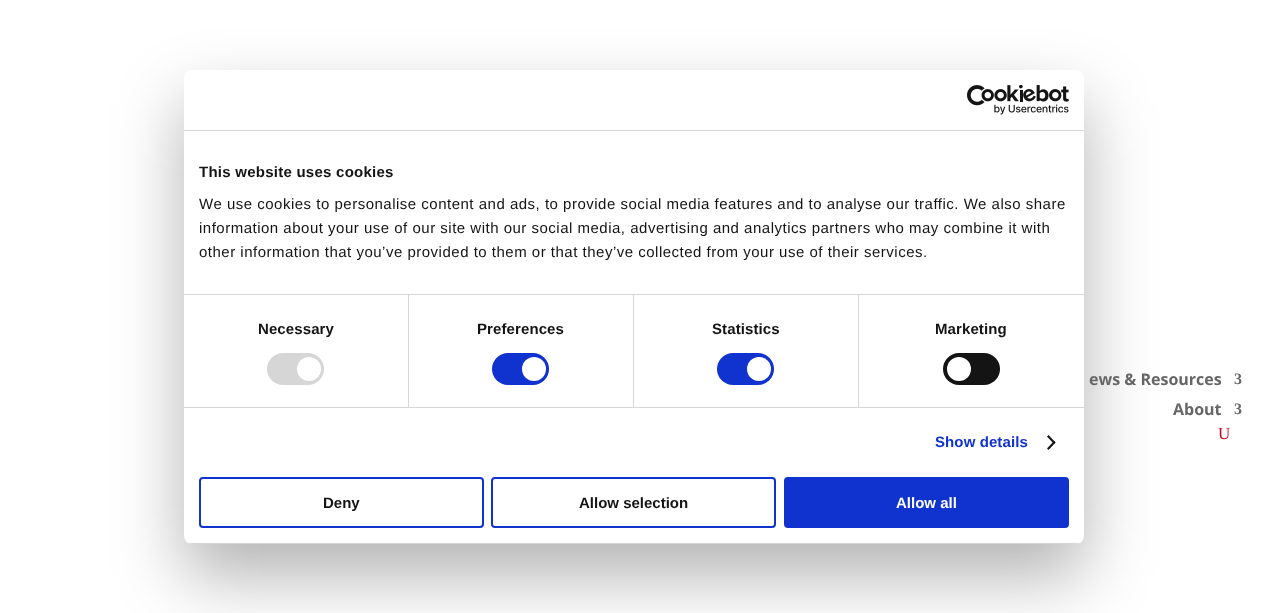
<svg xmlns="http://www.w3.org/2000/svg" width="1267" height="613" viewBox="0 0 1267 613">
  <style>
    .t1 { font: bold 15px Liberation Sans; letter-spacing: 0.25px; fill: #141414; }
    .t2 { font: 15px Liberation Sans; letter-spacing: 0.5px; fill: #141414; }
    .t3 { font: bold 15px Liberation Sans; letter-spacing: 0.1px; fill: #141414; }
    .t4 { font: bold 15px Liberation Sans; letter-spacing: 0.1px; fill: #1032cf; }
    .t5 { font: bold 15px Liberation Sans; fill: #141414; }
    .t6 { font: bold 15px Liberation Sans; fill: #fff; }
    .t7 { font: bold 16px Open Sans; fill: #666; }
    .t8 { font: bold 16px Liberation Serif; fill: #666; }
    .t9 { font: 17px Liberation Serif; fill: #cd071e; }
  </style>
  <defs>
    <clipPath id="clip1"><rect x="184" y="70" width="900" height="474" rx="8"/></clipPath>
  </defs>
  <rect width="100%" height="100%" fill="#fff"/>
  <rect x="184" y="102" width="900" height="474" rx="8" fill="#0000004d" filter="blur(34px)"/>
  <rect x="184" y="70" width="900" height="474" rx="8" fill="#fff"/>
  <rect x="184" y="130" width="900" height="1" fill="#d6d6d6"/>
  <image x="967" y="85" width="102" height="30" href="images/1.png"/>
  <rect x="184" y="294" width="900" height="1" fill="#d6d6d6"/>
  <text x="199" y="177" class="t1">This website uses cookies</text>
  <text x="199" y="209" class="t2">We use cookies to personalise content and ads, to provide social media features and to analyse our traffic. We also share</text>
  <text x="199" y="233" class="t2">information about your use of our site with our social media, advertising and analytics partners who may combine it with</text>
  <text x="199" y="257" class="t2">other information that you’ve provided to them or that they’ve collected from your use of their services.</text>
  <rect x="184" y="407" width="900" height="1" fill="#d6d6d6"/>
  <rect x="408" y="295" width="1" height="112" fill="#d6d6d6"/>
  <text x="258" y="334" class="t3">Necessary</text>
  <rect x="267" y="353" width="57" height="32" rx="16" fill="#d6d6d6"/>
  <circle cx="309" cy="369" r="12" fill="#fff"/>
  <rect x="633" y="295" width="1" height="112" fill="#d6d6d6"/>
  <text x="477" y="334" class="t3">Preferences</text>
  <rect x="492" y="353" width="57" height="32" rx="16" fill="#1032cf"/>
  <circle cx="534" cy="369" r="12" fill="#fff"/>
  <rect x="858" y="295" width="1" height="112" fill="#d6d6d6"/>
  <text x="712" y="334" class="t3">Statistics</text>
  <rect x="717" y="353" width="57" height="32" rx="16" fill="#1032cf"/>
  <circle cx="759" cy="369" r="12" fill="#fff"/>
  <text x="935" y="334" class="t3">Marketing</text>
  <rect x="943" y="353" width="57" height="32" rx="16" fill="#141414"/>
  <circle cx="959" cy="369" r="12" fill="#fff"/>
  <text x="935" y="447" class="t4">Show details</text>
  <path d="M1048.5 435L1055.5 442.5L1054 444L1047 436.5Z" fill="#141414"/>
  <path d="M1054 441L1055.5 442.5L1048.5 450L1047 448.5Z" fill="#141414"/>
  <g clip-path="url(#clip1)">
    <rect x="184" y="543" width="900" height="1" fill="#d6d6d6"/>
  </g>
  <rect x="200" y="478" width="283" height="49" rx="3" fill="none" stroke="#1032cf" stroke-width="2"/>
  <text x="323" y="508" class="t5">Deny</text>
  <rect x="492" y="478" width="283" height="49" rx="3" fill="none" stroke="#1032cf" stroke-width="2"/>
  <text x="579" y="508" class="t5">Allow selection</text>
  <rect x="785" y="478" width="283" height="49" rx="3" fill="#1032cf" stroke="#1032cf" stroke-width="2"/>
  <text x="896" y="508" class="t6">Allow all</text>
  <text x="1089" y="385" class="t7">ews &amp; Resources</text>
  <text x="1234" y="384" class="t8">3</text>
  <text x="1173" y="415" class="t7">About</text>
  <text x="1234" y="414" class="t8">3</text>
  <text x="1218" y="439" class="t9">U</text>
</svg>
